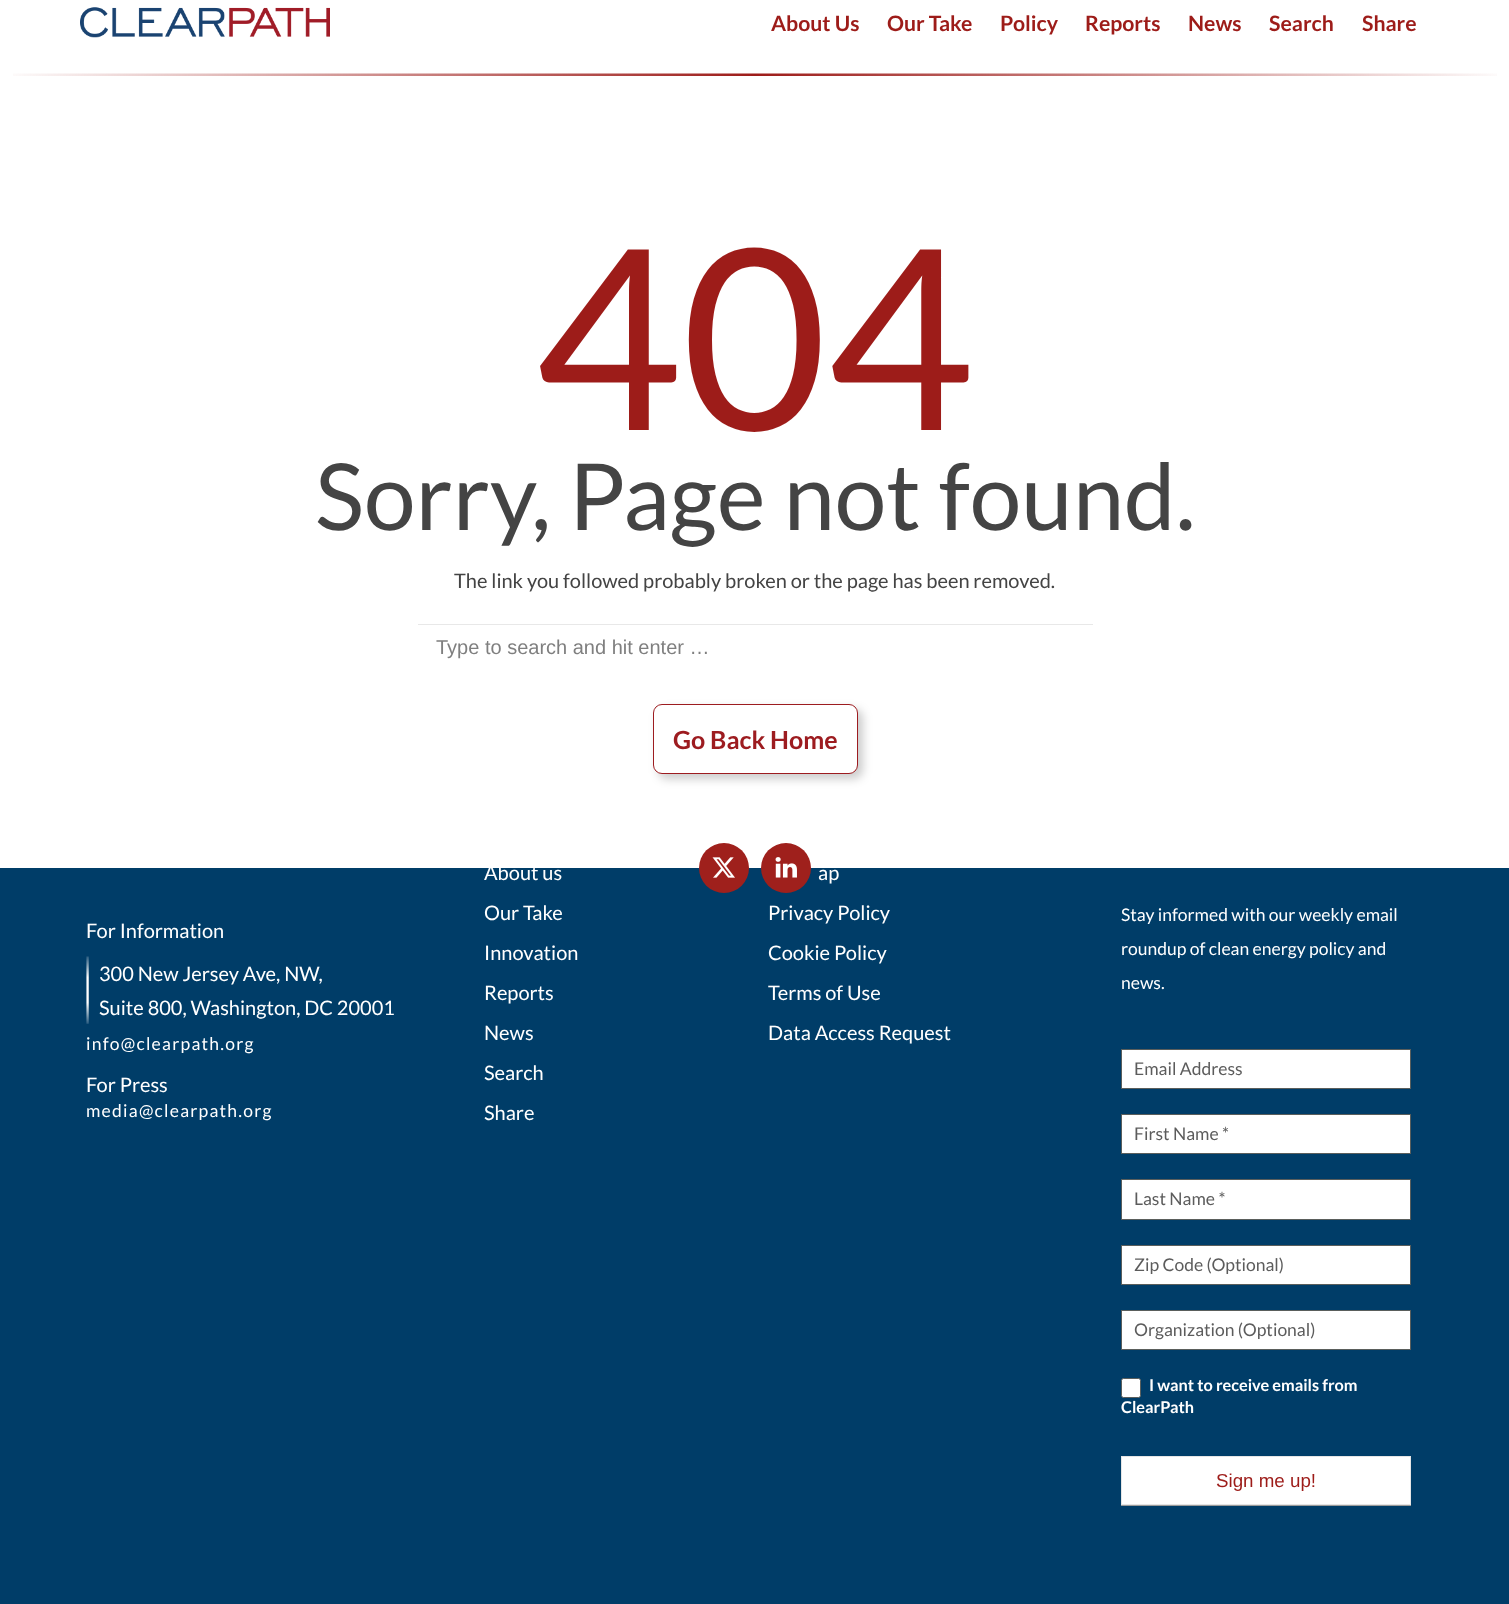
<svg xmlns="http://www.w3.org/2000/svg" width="1509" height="1604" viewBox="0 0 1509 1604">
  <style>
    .t1 { font: bold 21.25px Lato; fill: #9d1c19; }
    .t2 { font: 252px Lato; fill: #9d1c19; }
    .t3 { font: 92.5px Lato; fill: #444; }
    .t4 { font: 20px Lato; fill: #444; }
    .t5 { font: 20px Liberation Sans; fill: #7f7f7f; }
    .t6 { font: bold 25px Lato; fill: #9d1c20; }
    .t7 { font: 20px Lato; fill: #fff; }
    .t8 { font: 17.5px Lato; letter-spacing: 1.25px; fill: #fff; }
    .t9 { font: 17.5px Lato; fill: #fff; }
    .t10 { font: 17.5px Lato; fill: #5c5c5c; }
    .t11 { font: bold 16.25px Lato; fill: #fff; }
    .t12 { font: 18.75px Liberation Sans; fill: #9d1c19; }
  </style>
  <rect width="100%" height="100%" fill="#fff"/>
  <image x="13" y="73" width="1484" height="3" href="images/1.png"/>
  <image x="80" y="7" width="250" height="31" href="images/2.png"/>
  <text x="771" y="31" class="t1">About Us</text>
  <text x="887" y="31" class="t1">Our Take</text>
  <text x="1000" y="31" class="t1">Policy</text>
  <text x="1085" y="31" class="t1">Reports</text>
  <text x="1188" y="31" class="t1">News</text>
  <text x="1269" y="31" class="t1">Search</text>
  <text x="1362" y="31" class="t1">Share</text>
  <text x="535" y="430" class="t2">404</text>
  <text x="315" y="530" class="t3">Sorry, Page not found.</text>
  <text x="454" y="588" class="t4">The link you followed probably broken or the page has been removed.</text>
  <rect x="418" y="624" width="675" height="1" fill="#e8e8e8"/>
  <text x="436" y="654" class="t5">Type to search and hit enter …</text>
  <rect x="658" y="709" width="205" height="70" rx="9" fill="#00000033" filter="blur(5px)"/>
  <rect x="653.5" y="704.5" width="204" height="69" rx="8.5" fill="#fff" stroke="#9d1c20"/>
  <text x="673" y="749" class="t6">Go Back Home</text>
  <rect x="0" y="868" width="1509" height="736" fill="#003d68"/>
  <circle cx="724" cy="868" r="25" fill="#9f201c"/>
  <image x="712" y="857" width="23" height="21" href="images/3.png"/>
  <circle cx="786" cy="868" r="25" fill="#9f201c"/>
  <image x="775" y="857" width="22" height="21" href="images/4.png"/>
  <text x="86" y="938" class="t7">For Information</text>
  <image x="86" y="956" width="3" height="68" href="images/5.png"/>
  <text x="99" y="981" class="t7">300 New Jersey Ave, NW,</text>
  <text x="99" y="1015" class="t7">Suite 800, Washington, DC 20001</text>
  <text x="86" y="1050" class="t8">info@clearpath.org</text>
  <text x="86" y="1092" class="t7">For Press</text>
  <text x="86" y="1117" class="t8">media@clearpath.org</text>
  <text x="484" y="880" class="t7">About us</text>
  <text x="484" y="920" class="t7">Our Take</text>
  <text x="484" y="960" class="t7">Innovation</text>
  <text x="484" y="1000" class="t7">Reports</text>
  <text x="484" y="1040" class="t7">News</text>
  <text x="484" y="1080" class="t7">Search</text>
  <text x="484" y="1120" class="t7">Share</text>
  <text x="818" y="880" class="t7">ap</text>
  <text x="768" y="920" class="t7">Privacy Policy</text>
  <text x="768" y="960" class="t7">Cookie Policy</text>
  <text x="768" y="1000" class="t7">Terms of Use</text>
  <text x="768" y="1040" class="t7">Data Access Request</text>
  <text x="1121" y="921" class="t9">Stay informed with our weekly email</text>
  <text x="1121" y="955" class="t9">roundup of clean energy policy and</text>
  <text x="1121" y="989" class="t9">news.</text>
  <rect x="1121.5" y="1049.5" width="289" height="39" fill="#fff" stroke="#5a5e5c"/>
  <text x="1134" y="1075" class="t10">Email Address</text>
  <rect x="1121.5" y="1114.5" width="289" height="39" fill="#fff" stroke="#5a5e5c"/>
  <text x="1134" y="1140" class="t10">First Name *</text>
  <rect x="1121.5" y="1179.5" width="289" height="40" fill="#fff" stroke="#5a5e5c"/>
  <text x="1134" y="1205" class="t10">Last Name *</text>
  <rect x="1121.5" y="1245.5" width="289" height="39" fill="#fff" stroke="#5a5e5c"/>
  <text x="1134" y="1271" class="t10">Zip Code (Optional)</text>
  <rect x="1121.5" y="1310.5" width="289" height="39" fill="#fff" stroke="#5a5e5c"/>
  <text x="1134" y="1336" class="t10">Organization (Optional)</text>
  <rect x="1121.5" y="1378.5" width="19" height="19" rx="2" fill="#fff" stroke="#5a5e5c"/>
  <text x="1149" y="1391" class="t11">I want to receive emails from</text>
  <text x="1121" y="1413" class="t11">ClearPath</text>
  <rect x="1121" y="1458" width="290" height="48" fill="#9b9b9b" filter="blur(0.5px)"/>
  <rect x="1121.5" y="1456.5" width="289" height="48" fill="#fff" stroke="#e5e5e5"/>
  <text x="1216" y="1487" class="t12">Sign me up!</text>
</svg>
